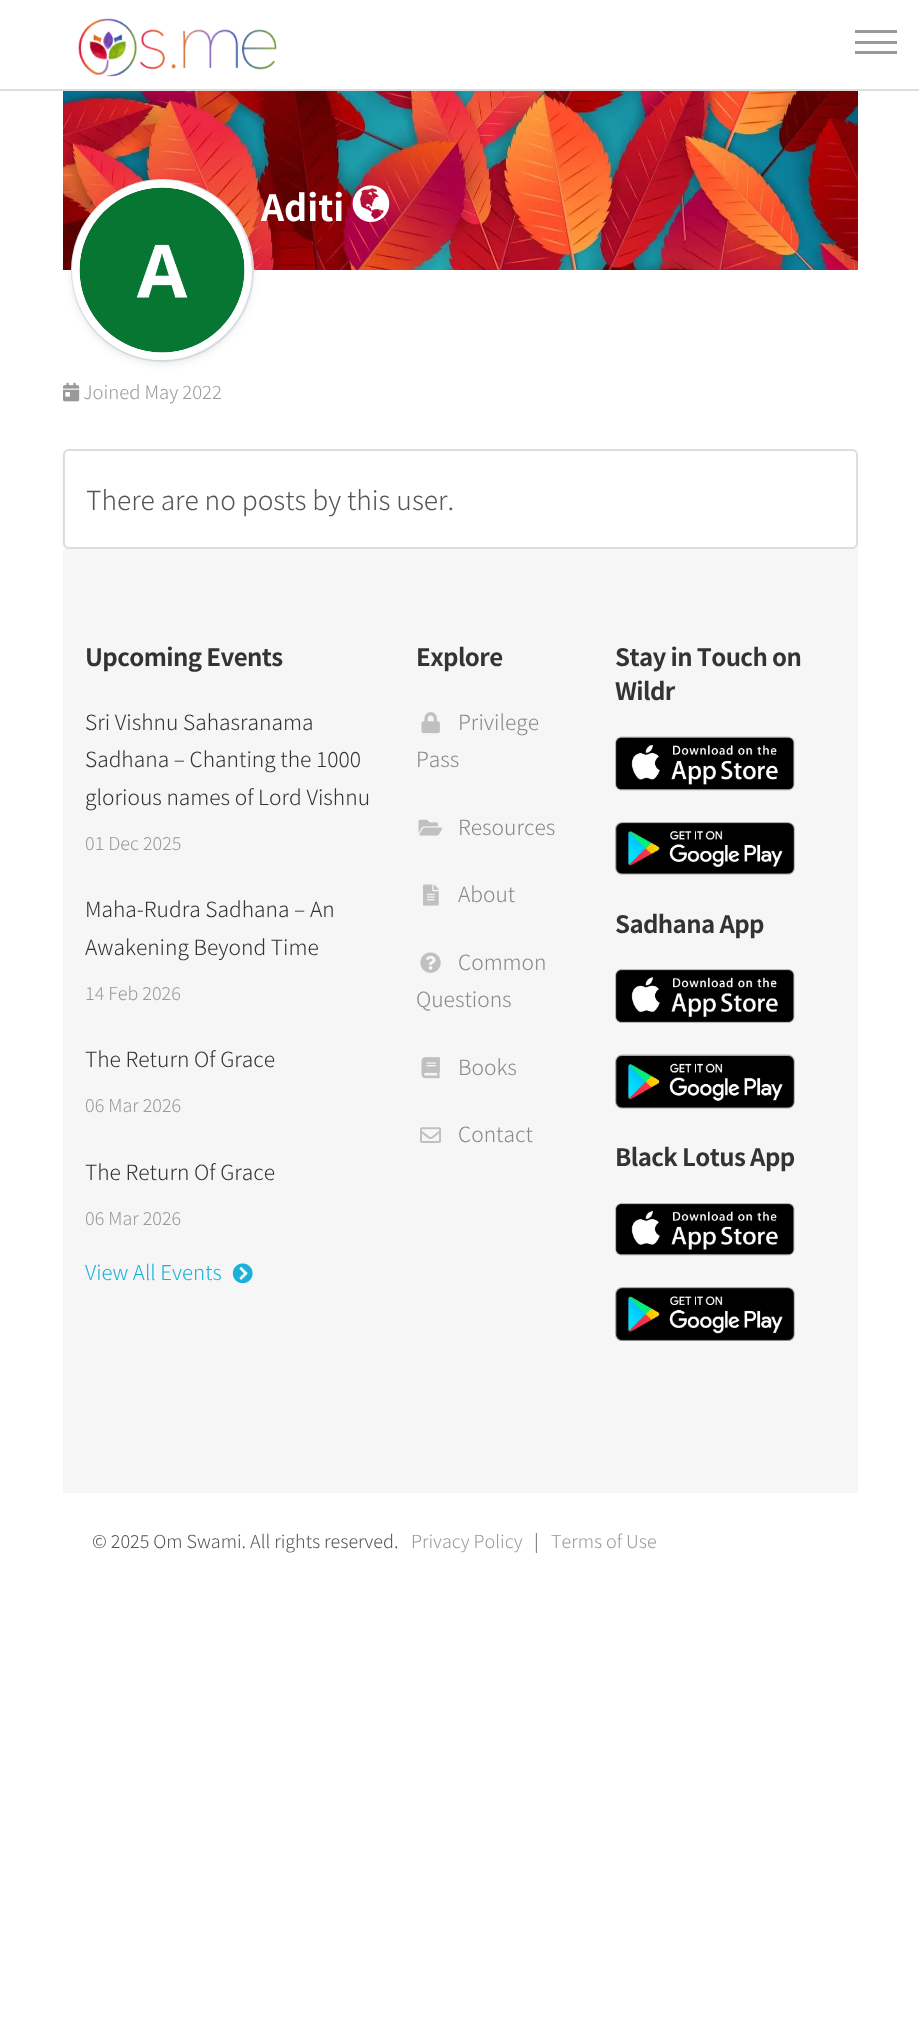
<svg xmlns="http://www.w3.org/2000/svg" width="919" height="2017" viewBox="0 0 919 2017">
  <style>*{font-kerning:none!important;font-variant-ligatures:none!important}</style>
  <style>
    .t1 { font: bold 36px Noto Sans JP; fill: #fff; }
    .t2 { font: 300 18.5px Noto Sans JP; fill: #999; }
    .t3 { font: 300 26.4px Noto Sans JP; fill: #555; }
    .t4 { font: bold 24px Noto Sans JP; letter-spacing: -0.6px; fill: #333; }
    .t5 { font: 300 21px Noto Sans JP; fill: #333; }
    .t6 { font: 300 18px Noto Sans JP; fill: #999; }
    .t7 { font: 300 20.5px Noto Sans JP; fill: #1ab1db; }
    .t8 { font: 300 21px Noto Sans JP; fill: #8a8989; }
    .t9 { font: 300 18px Noto Sans JP; fill: #555; }
  </style>
  <rect width="100%" height="100%" fill="#fff"/>
  <rect x="0" y="89" width="919" height="2" fill="#ddd"/>
  <image x="78" y="18" width="199" height="59" href="images/1.png"/>
  <rect x="855" y="30" width="42" height="3" fill="#999"/>
  <rect x="855" y="41" width="42" height="3" fill="#999"/>
  <rect x="855" y="51" width="42" height="3" fill="#999"/>
  <image x="63" y="91" width="795" height="179" href="images/2.png"/>
  <circle cx="162.5" cy="270.5" r="90.5" fill="none" stroke="#e7e9ec" stroke-width="2"/>
  <rect x="72" y="183" width="180" height="180" rx="90" fill="#122b461f" filter="blur(4px)"/>
  <circle cx="162" cy="270" r="86" fill="none" stroke="#fff" stroke-width="8"/>
  <image x="79" y="187" width="166" height="166" href="images/3.png"/>
  <text x="261" y="221" class="t1">Aditi</text>
  <image x="352" y="185" width="38" height="37" href="images/4.png"/>
  <image x="63" y="382" width="17" height="20" href="images/5.png"/>
  <text x="83" y="399" class="t2">Joined May 2022</text>
  <rect x="63" y="450" width="795" height="101" rx="6" fill="#0000000d" filter="blur(1px)"/>
  <rect x="64" y="450" width="793" height="98" rx="5" fill="#fff" stroke="#ddd" stroke-width="2"/>
  <text x="86" y="510" class="t3">There are no posts by this user.</text>
  <rect x="63" y="549" width="795" height="944" fill="#f6f6f6"/>
  <text x="85" y="666" class="t4">Upcoming Events</text>
  <text x="85" y="730" class="t5">Sri Vishnu Sahasranama</text>
  <text x="85" y="767" class="t5">Sadhana – Chanting the 1000</text>
  <text x="85" y="805" class="t5">glorious names of Lord Vishnu</text>
  <text x="85" y="850" class="t6">01 Dec 2025</text>
  <text x="85" y="917" class="t5">Maha-Rudra Sadhana – An</text>
  <text x="85" y="955" class="t5">Awakening Beyond Time</text>
  <text x="85" y="1000" class="t6">14 Feb 2026</text>
  <text x="85" y="1067" class="t5">The Return Of Grace</text>
  <text x="85" y="1112" class="t6">06 Mar 2026</text>
  <text x="85" y="1180" class="t5">The Return Of Grace</text>
  <text x="85" y="1225" class="t6">06 Mar 2026</text>
  <text x="85" y="1280" class="t7">View All Events</text>
  <image x="232" y="1263" width="21" height="21" href="images/6.png"/>
  <text x="416" y="666" class="t4">Explore</text>
  <image x="421" y="712" width="19" height="22" href="images/7.png"/>
  <text x="458" y="730" class="t8">Privilege</text>
  <text x="416" y="767" class="t8">Pass</text>
  <image x="418" y="819" width="24" height="17" href="images/8.png"/>
  <text x="458" y="835" class="t8">Resources</text>
  <image x="423" y="884" width="16" height="22" href="images/9.png"/>
  <text x="458" y="902" class="t8">About</text>
  <image x="420" y="952" width="21" height="21" href="images/10.png"/>
  <text x="458" y="970" class="t8">Common</text>
  <text x="416" y="1007" class="t8">Questions</text>
  <image x="421" y="1057" width="19" height="22" href="images/11.png"/>
  <text x="458" y="1075" class="t8">Books</text>
  <image x="420" y="1127" width="21" height="16" href="images/12.png"/>
  <text x="458" y="1142" class="t8">Contact</text>
  <text x="615" y="666" class="t4">Stay in Touch on</text>
  <text x="615" y="700" class="t4">Wildr</text>
  <image x="615" y="736" width="180" height="55" href="images/13.png"/>
  <image x="615" y="822" width="180" height="53" href="images/14.png"/>
  <text x="615" y="933" class="t4">Sadhana App</text>
  <image x="615" y="969" width="180" height="54" href="images/15.png"/>
  <image x="615" y="1054" width="180" height="55" href="images/16.png"/>
  <text x="615" y="1166" class="t4">Black Lotus App</text>
  <image x="615" y="1203" width="180" height="53" href="images/17.png"/>
  <image x="615" y="1287" width="180" height="54" href="images/18.png"/>
  <text x="92" y="1548" class="t9">© 2025 Om Swami. All rights reserved.</text>
  <text x="411" y="1548" class="t6">Privacy Policy</text>
  <text x="534" y="1548" class="t9">|</text>
  <text x="551" y="1548" class="t6">Terms of Use</text>
</svg>
